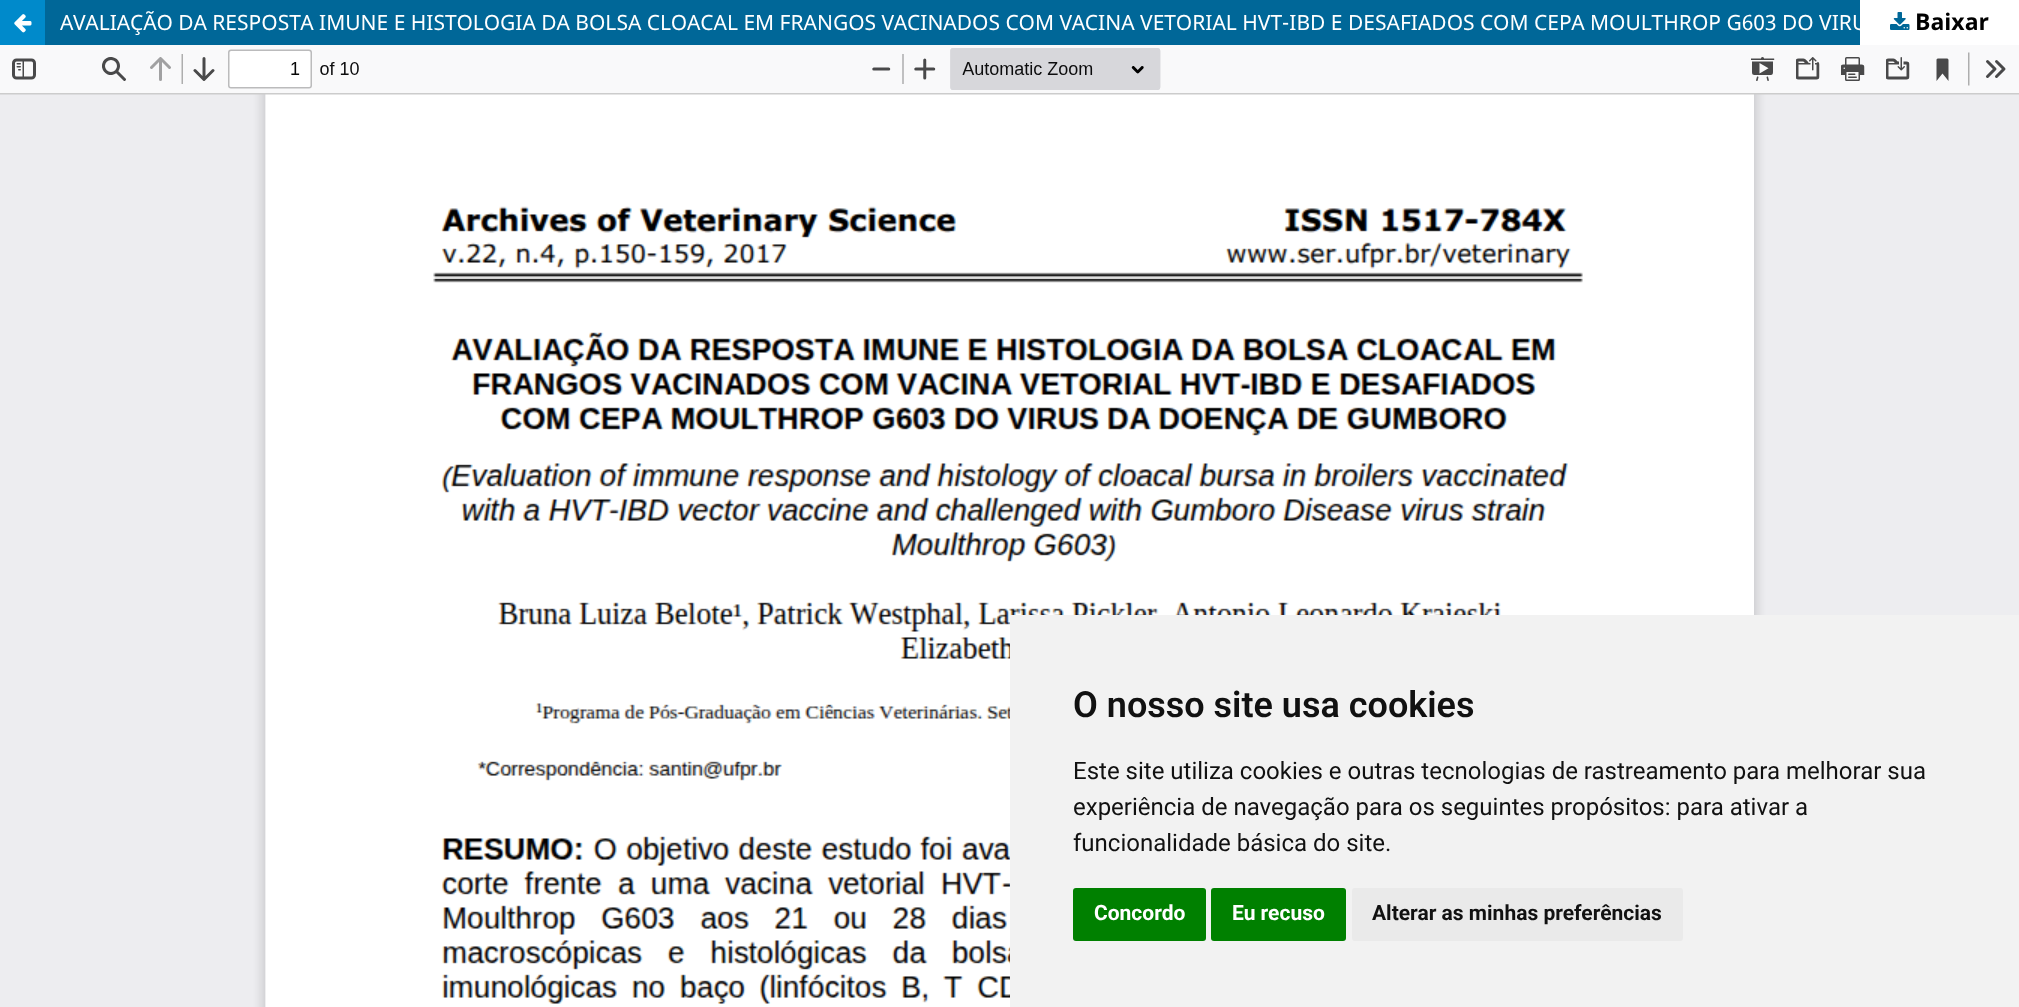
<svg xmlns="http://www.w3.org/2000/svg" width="2019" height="1007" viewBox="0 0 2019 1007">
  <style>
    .t1 { font: 21px Noto Sans; fill: #fff; }
    .t2 { font: bold 23px Noto Sans; fill: #000; }
    .t3 { font: 600 36px Roboto; fill: #111; }
    .t4 { font: 24px Roboto; fill: #111; }
    .t5 { font: bold 21px Roboto; fill: #fff; }
    .t6 { font: bold 21px Roboto; fill: #111; }
  </style>
  <rect width="100%" height="100%" fill="#fff"/>
  <rect x="45" y="0" width="1815" height="45" fill="#006798"/>
  <rect x="0" y="0" width="45" height="45" fill="#008acb"/>
  <image x="14" y="14" width="18" height="19" href="images/1.png"/>
  <text x="60" y="30" class="t1">AVALIAÇÃO DA RESPOSTA IMUNE E HISTOLOGIA DA BOLSA CLOACAL EM FRANGOS VACINADOS COM VACINA VETORIAL HVT-IBD E DESAFIADOS COM CEPA MOULTHROP G603 DO VIRU</text>
  <image x="1890" y="12" width="20" height="18" href="images/2.png"/>
  <text x="1915" y="30" class="t2">Baixar</text>
  <image x="0" y="45" width="2019" height="962" href="images/3.png"/>
  <rect x="1010" y="615" width="1009" height="392" fill="#f2f2f2"/>
  <text x="1073" y="717" class="t3">O nosso site usa cookies</text>
  <text x="1073" y="779" class="t4">Este site utiliza cookies e outras tecnologias de rastreamento para melhorar sua</text>
  <text x="1073" y="815" class="t4">experiência de navegação para os seguintes propósitos: para ativar a</text>
  <text x="1073" y="851" class="t4">funcionalidade básica do site.</text>
  <rect x="1073" y="888" width="133" height="53" rx="3" fill="#008000"/>
  <text x="1094" y="920" class="t5">Concordo</text>
  <rect x="1211" y="888" width="135" height="53" rx="3" fill="#008000"/>
  <text x="1232" y="920" class="t5">Eu recuso</text>
  <rect x="1352" y="888" width="331" height="53" rx="3" fill="#eaeaea"/>
  <text x="1372" y="920" class="t6">Alterar as minhas preferências</text>
</svg>
